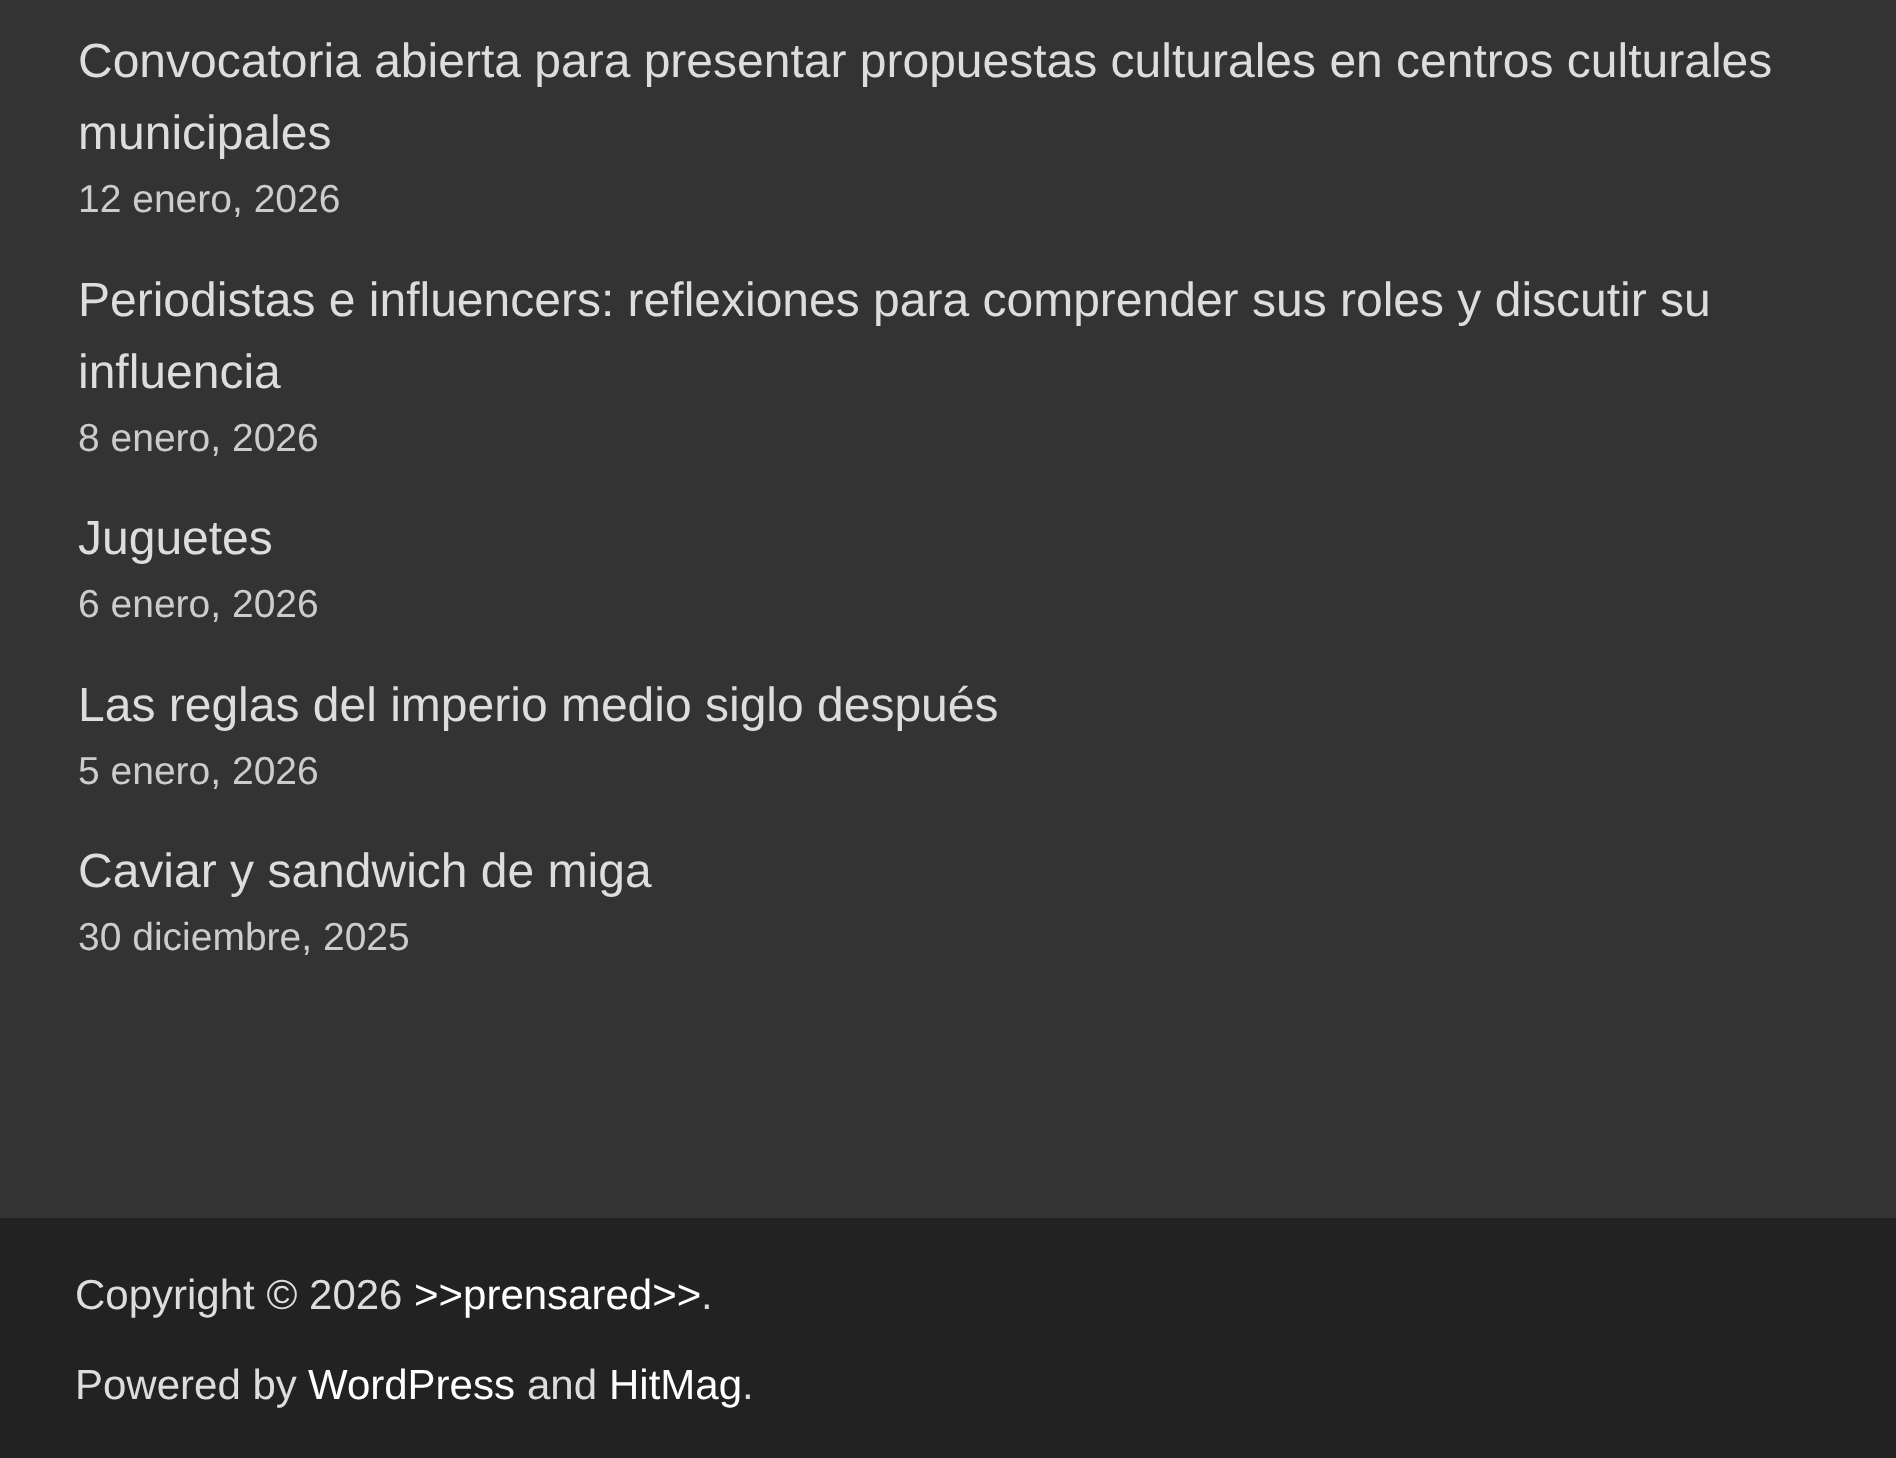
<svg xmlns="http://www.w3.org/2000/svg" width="1896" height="1458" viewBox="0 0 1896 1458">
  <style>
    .t1 { font: 48px Liberation Sans; fill: #ddd; }
    .t2 { font: 39px Liberation Sans; fill: #ccc; }
    .t3 { font: 42px Liberation Sans; fill: #ddd; }
    .t4 { font: 42px Liberation Sans; fill: #fff; }
  </style>
  <rect width="100%" height="100%" fill="#333"/>
  <text x="78" y="77" class="t1">Convocatoria abierta para presentar propuestas culturales en centros culturales</text>
  <text x="78" y="149" class="t1">municipales</text>
  <text x="78" y="212" class="t2">12 enero, 2026</text>
  <text x="78" y="316" class="t1">Periodistas e influencers: reflexiones para comprender sus roles y discutir su</text>
  <text x="78" y="388" class="t1">influencia</text>
  <text x="78" y="451" class="t2">8 enero, 2026</text>
  <text x="78" y="554" class="t1">Juguetes</text>
  <text x="78" y="617" class="t2">6 enero, 2026</text>
  <text x="78" y="721" class="t1">Las reglas del imperio medio siglo después</text>
  <text x="78" y="784" class="t2">5 enero, 2026</text>
  <text x="78" y="887" class="t1">Caviar y sandwich de miga</text>
  <text x="78" y="950" class="t2">30 diciembre, 2025</text>
  <rect x="0" y="1218" width="1896" height="240" fill="#222"/>
  <text x="75" y="1309" class="t3">Copyright © 2026</text>
  <text x="414" y="1309" class="t4">&gt;&gt;prensared&gt;&gt;</text>
  <text x="701" y="1309" class="t3">.</text>
  <text x="75" y="1399" class="t3">Powered by</text>
  <text x="308" y="1399" class="t4">WordPress</text>
  <text x="527" y="1399" class="t3">and</text>
  <text x="609" y="1399" class="t4">HitMag</text>
  <text x="742" y="1399" class="t3">.</text>
</svg>
